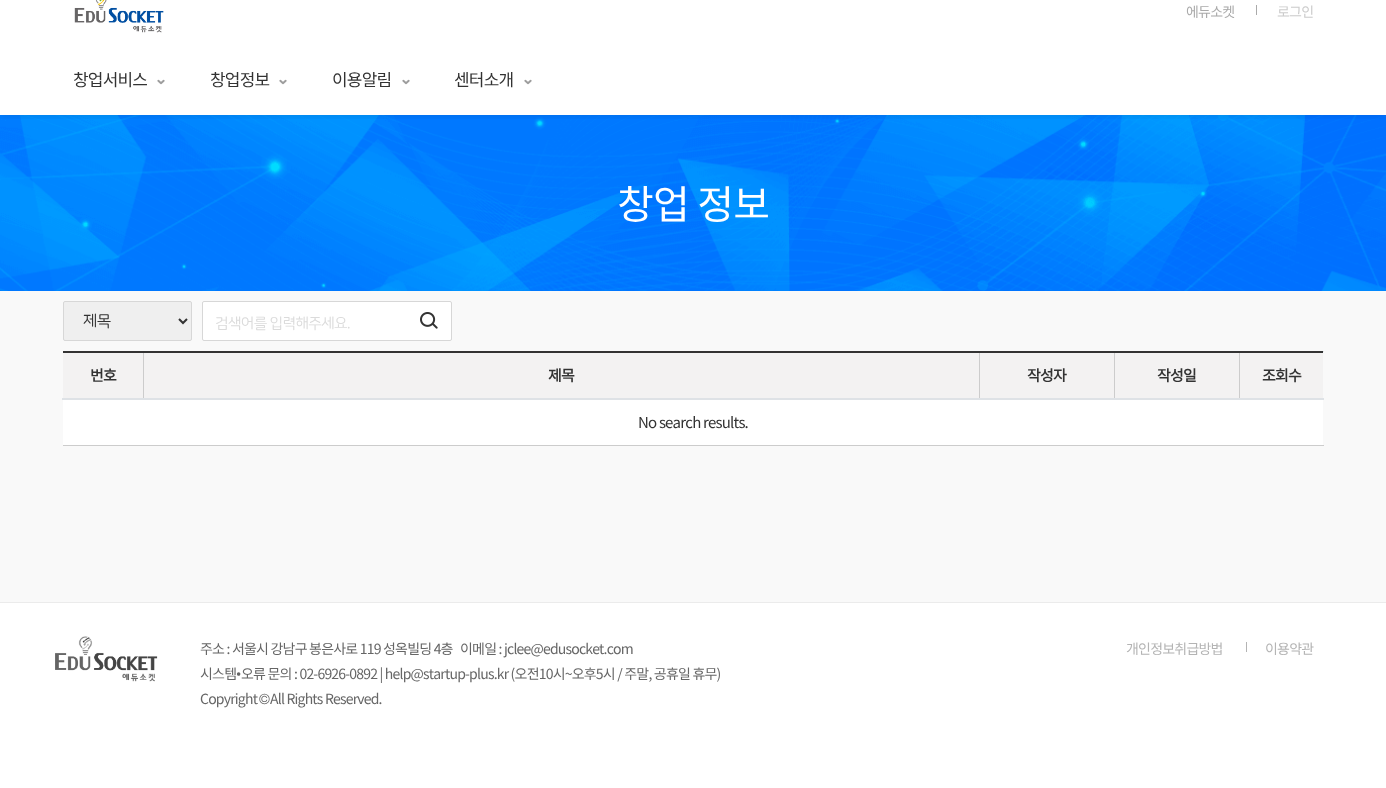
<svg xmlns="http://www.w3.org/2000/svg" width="1386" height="788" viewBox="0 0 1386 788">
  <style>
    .t1 { font: 14px Noto Sans KR; letter-spacing: -0.8px; fill: #aaa; }
    .t2 { font: 14px Noto Sans KR; letter-spacing: -0.8px; fill: #ccc; }
    .t3 { font: 17px Noto Sans KR; letter-spacing: -0.8px; fill: #333; }
    .t4 { font: 40px Noto Sans KR; letter-spacing: -0.8px; fill: #fff; }
    .t5 { font: 16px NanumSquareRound; letter-spacing: -0.8px; fill: #333; }
    .t6 { font: 15px NanumSquareRound; letter-spacing: -0.75px; fill: #dbdbdb; }
    .t7 { font: bold 15px Noto Sans KR; letter-spacing: -0.8px; fill: #333; }
    .t8 { font: 15px Noto Sans KR; letter-spacing: -0.8px; fill: #333; }
    .t9 { font: 14px Noto Sans KR; letter-spacing: -0.8px; fill: #666; }
    .t10 { font: 14px Dotum; letter-spacing: -0.8px; fill: #666; }
    .t11 { font: 14px Noto Sans KR; letter-spacing: -0.8px; fill: #b4b4b4; }
  </style>
  <defs>
    <clipPath id="clip1"><rect x="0" y="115" width="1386" height="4"/></clipPath>
  </defs>
  <rect width="100%" height="100%" fill="#fff"/>
  <image x="0" y="115" width="1386" height="176" href="images/3.png"/>
  <g clip-path="url(#clip1)">
    <rect x="0" y="-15" width="1386" height="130" fill="#0000001a" filter="blur(5px)"/>
  </g>
  <image x="74" y="0" width="90" height="33" href="images/1.png"/>
  <text x="1186" y="17" class="t1">에듀소켓</text>
  <rect x="1256" y="5" width="1" height="10" fill="#aaa"/>
  <text x="1277" y="17" class="t2">로그인</text>
  <text x="73" y="86" class="t3">창업서비스</text>
  <image x="157" y="79" width="8" height="6" href="images/2.png"/>
  <text x="210" y="86" class="t3">창업정보</text>
  <image x="279" y="79" width="8" height="6" href="images/2.png"/>
  <text x="332" y="86" class="t3">이용알림</text>
  <image x="402" y="79" width="8" height="6" href="images/2.png"/>
  <text x="454" y="86" class="t3">센터소개</text>
  <image x="524" y="79" width="8" height="6" href="images/2.png"/>
  <rect x="0" y="291" width="1386" height="311" fill="#f9f9f9"/>
  <text x="617" y="219" class="t4">창업 정보</text>
  <rect x="63.5" y="301.5" width="128" height="39" rx="1.5" fill="#efefef" stroke="#d7d7d7"/>
  <path d="M179 319L183 323L187 319" fill="none" stroke="#333" stroke-width="2"/>
  <text x="83" y="326" class="t5">제목</text>
  <rect x="202.5" y="301.5" width="249" height="39" rx="1.5" fill="#fff" stroke="#d7d7d7"/>
  <text x="215" y="328" class="t6">검색어를 입력해주세요.</text>
  <image x="420" y="312" width="18" height="17" href="images/4.png"/>
  <rect x="63" y="400" width="1260" height="45" fill="#fff"/>
  <rect x="143" y="351" width="1" height="48" fill="#ccc"/>
  <rect x="979" y="351" width="1" height="48" fill="#ccc"/>
  <rect x="1114" y="351" width="1" height="48" fill="#ccc"/>
  <rect x="1239" y="351" width="1" height="48" fill="#ccc"/>
  <rect x="63" y="351" width="1260" height="2" fill="#333"/>
  <rect x="63" y="353" width="80" height="45" fill="#f3f2f2"/>
  <text x="90" y="381" class="t7">번호</text>
  <rect x="144" y="353" width="835" height="45" fill="#f3f2f2"/>
  <text x="548" y="381" class="t7">제목</text>
  <rect x="980" y="353" width="134" height="45" fill="#f3f2f2"/>
  <text x="1027" y="381" class="t7">작성자</text>
  <rect x="1115" y="353" width="124" height="45" fill="#f3f2f2"/>
  <text x="1157" y="381" class="t7">작성일</text>
  <rect x="1240" y="353" width="83" height="45" fill="#f3f2f2"/>
  <rect x="1323" y="351" width="1" height="1" fill="#dee2e6"/>
  <rect x="62" y="398" width="1262" height="2" fill="#dee2e6"/>
  <text x="1262" y="381" class="t7">조회수</text>
  <rect x="63" y="445" width="1261" height="1" fill="#ccc"/>
  <text x="638" y="428" class="t8">No search results.</text>
  <rect x="0" y="602" width="1386" height="1" fill="#ebebeb"/>
  <image x="55" y="636" width="103" height="46" href="images/5.png"/>
  <text x="200" y="654" class="t9">주소 : 서울시 강남구 봉은사로 119 성옥빌딩 4층</text>
  <text x="460" y="654" class="t9">이메일 : jclee@edusocket.com</text>
  <text x="200" y="679" class="t9">시스템</text>
  <text x="236" y="679" class="t10">•</text>
  <text x="241" y="679" class="t9">오류 문의 : 02-6926-0892 | help@startup-plus.kr (오전10시~오후5시 / 주말, 공휴일 휴무)</text>
  <text x="200" y="704" class="t9">Copyright</text>
  <text x="259" y="704" class="t10">©</text>
  <text x="270" y="704" class="t9">All Rights Reserved.</text>
  <text x="1126" y="654" class="t11">개인정보취급방법</text>
  <rect x="1246" y="642" width="1" height="10" fill="#b4b4b4"/>
  <text x="1265" y="654" class="t11">이용약관</text>
</svg>
